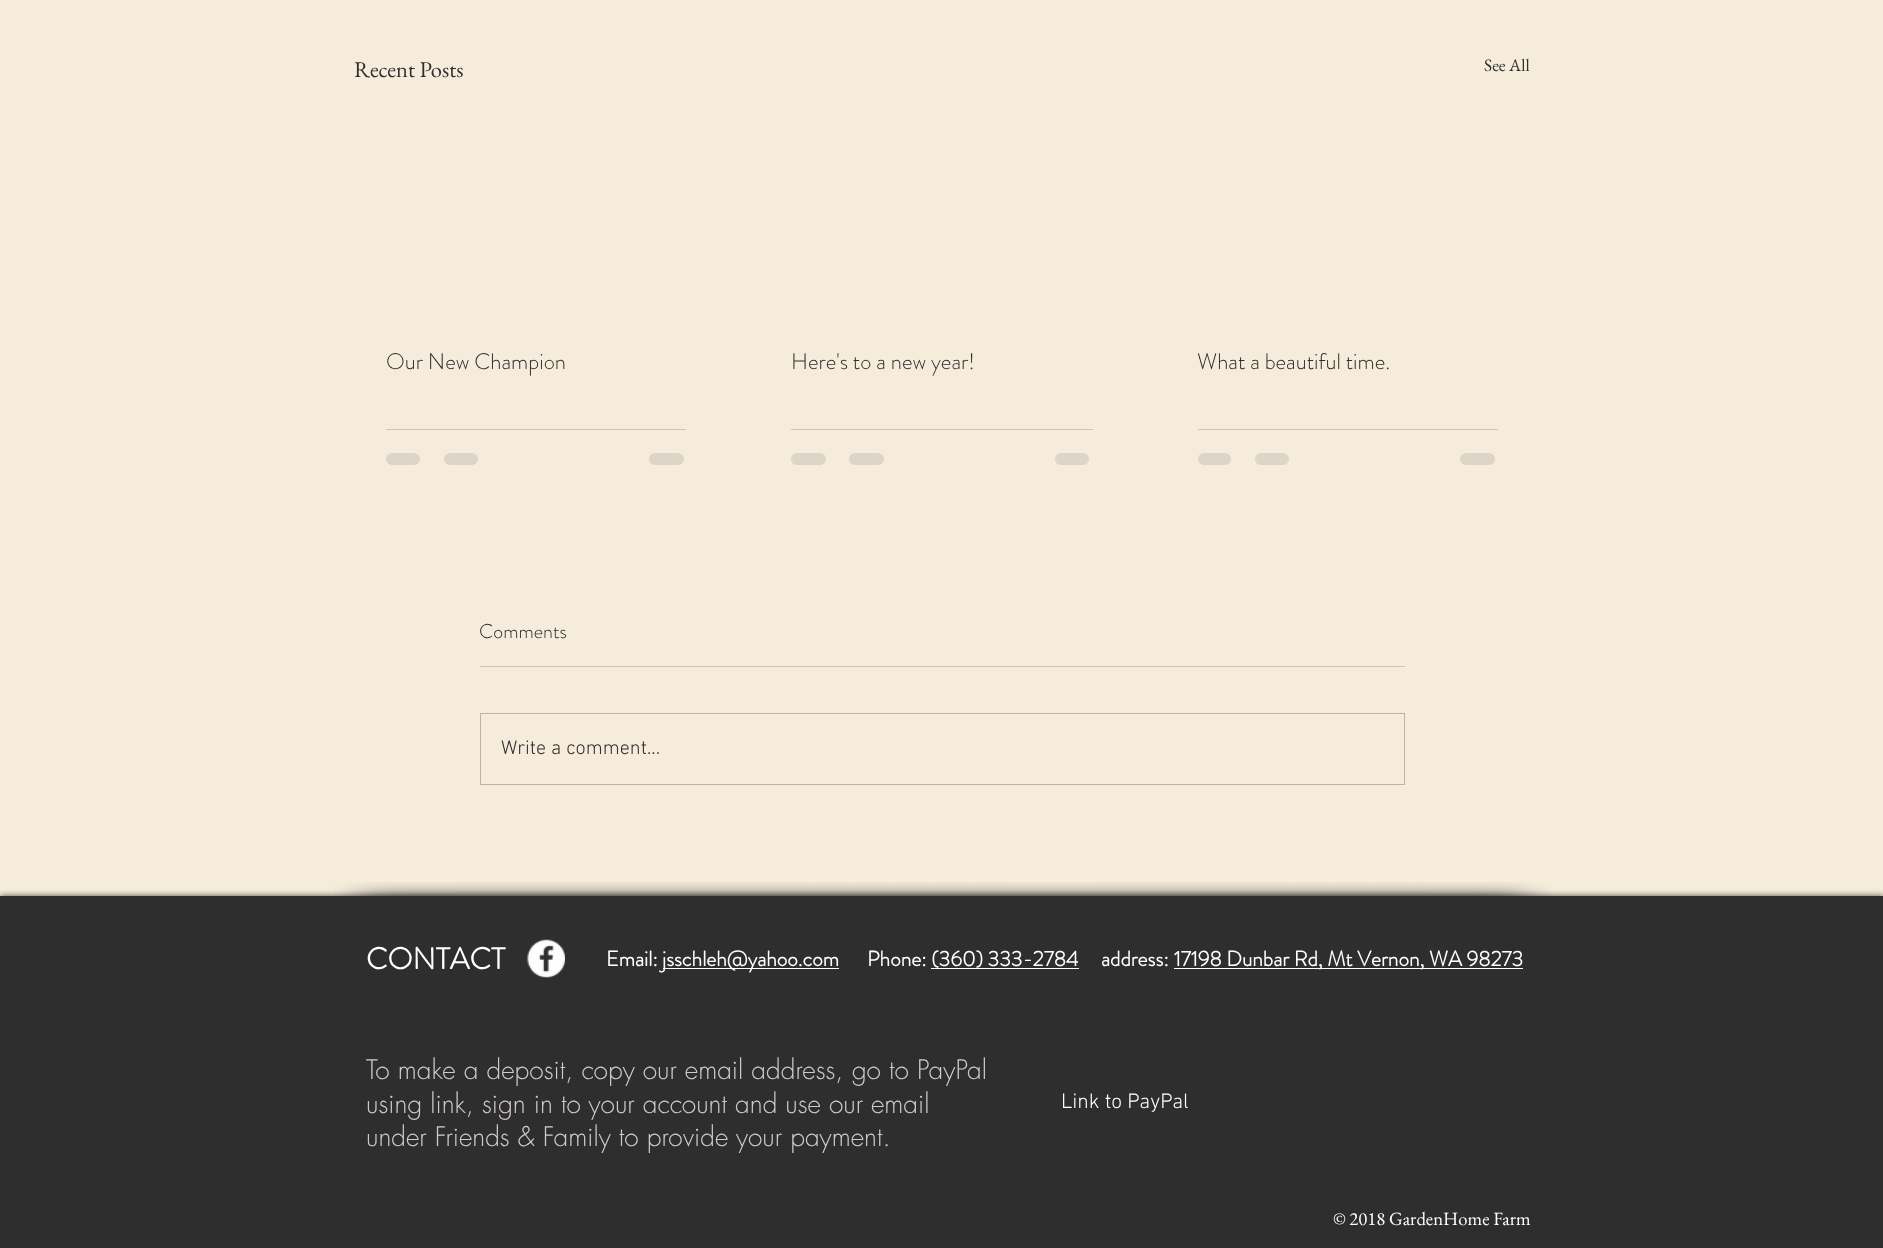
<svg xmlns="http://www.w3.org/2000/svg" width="1883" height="1248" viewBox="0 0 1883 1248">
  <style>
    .t1 { font: 22.5px EB Garamond; fill: #2f2e2e; }
    .t2 { font: 17.5px EB Garamond; fill: #2f2e2e; }
    .t3 { font: 300 22.5px 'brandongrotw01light'; fill: #2f2e2e; }
    .t4 { font: 300 20px 'brandongrotw01light'; fill: #2f2e2e; }
    .t5 { font: 300 20px 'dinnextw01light'; fill: #2f2e2e; }
    .t6 { font: bold 30px 'brandongrotw01light'; fill: #fff; }
    .t7 { font: bold 21.25px 'brandongrotw01light'; fill: #fff; }
    .t8 { font: 300 26.25px futura; fill: #d1cac9; }
    .t9 { font: 300 21.25px 'dinnextw01light'; fill: #fff; }
    .t10 { font: 18.75px EB Garamond; fill: #fff; }
  </style>
  <rect width="100%" height="100%" fill="#f5ecdc"/>
  <text x="354" y="77" class="t1">Recent Posts</text>
  <text x="1484" y="71" class="t2">See All</text>
  <text x="386" y="369" class="t3">Our New Champion</text>
  <rect x="386" y="429" width="300" height="1" fill="#cdc6b9"/>
  <rect x="386" y="453" width="34" height="12" rx="6" fill="#ddd5c7"/>
  <rect x="444" y="453" width="34" height="12" rx="6" fill="#ddd5c7"/>
  <rect x="649" y="453" width="35" height="12" rx="6" fill="#ddd5c7"/>
  <text x="791" y="369" class="t3">Here's to a new year!</text>
  <rect x="791" y="429" width="302" height="1" fill="#cdc6b9"/>
  <rect x="791" y="453" width="35" height="12" rx="6" fill="#ddd5c7"/>
  <rect x="849" y="453" width="35" height="12" rx="6" fill="#ddd5c7"/>
  <rect x="1055" y="453" width="34" height="12" rx="6" fill="#ddd5c7"/>
  <text x="1197" y="369" class="t3">What a beautiful time.</text>
  <rect x="1198" y="429" width="300" height="1" fill="#cdc6b9"/>
  <rect x="1198" y="453" width="33" height="12" rx="6" fill="#ddd5c7"/>
  <rect x="1255" y="453" width="34" height="12" rx="6" fill="#ddd5c7"/>
  <rect x="1460" y="453" width="35" height="12" rx="6" fill="#ddd5c7"/>
  <text x="479" y="638" class="t4">Comments</text>
  <rect x="480" y="666" width="925" height="1" fill="#cdc6b9"/>
  <rect x="480.5" y="713.5" width="924" height="71" fill="none" stroke="#bab3a8"/>
  <text x="501" y="754" class="t5">Write a comment...</text>
  <rect x="0" y="896" width="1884" height="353" fill="#000000b3" filter="blur(3px)"/>
  <rect x="0" y="896" width="1883" height="352" fill="#2f2e2e"/>
  <image x="334" y="882" width="121" height="14" href="images/1.png"/>
  <image x="455" y="882" width="975" height="14" href="images/2.png"/>
  <image x="1430" y="882" width="121" height="14" href="images/3.png"/>
  <text x="366" y="969" class="t6">CONTACT</text>
  <image x="527" y="939" width="38" height="39" href="images/4.png"/>
  <text x="606" y="966" class="t7">Email:</text>
  <rect x="663" y="968" width="176" height="1" fill="#fff"/>
  <text x="662" y="966" class="t7">jsschleh@yahoo.com</text>
  <text x="867" y="966" class="t7">Phone: (360) 333-2784</text>
  <rect x="931" y="968" width="148" height="1" fill="#fff"/>
  <text x="1101" y="966" class="t7">address:</text>
  <rect x="1174" y="968" width="349" height="1" fill="#fff"/>
  <text x="1174" y="966" class="t7">17198 Dunbar Rd, Mt Vernon, WA 98273</text>
  <text x="366" y="1079" class="t8">To make a deposit, copy our email address, go to PayPal</text>
  <text x="366" y="1113" class="t8">using link, sign in to your account and use our email</text>
  <text x="366" y="1146" class="t8">under Friends &amp; Family to provide your payment.</text>
  <text x="1061" y="1108" class="t9">Link to PayPal</text>
  <text x="1333" y="1225" class="t10">© 2018 GardenHome Farm</text>
</svg>
